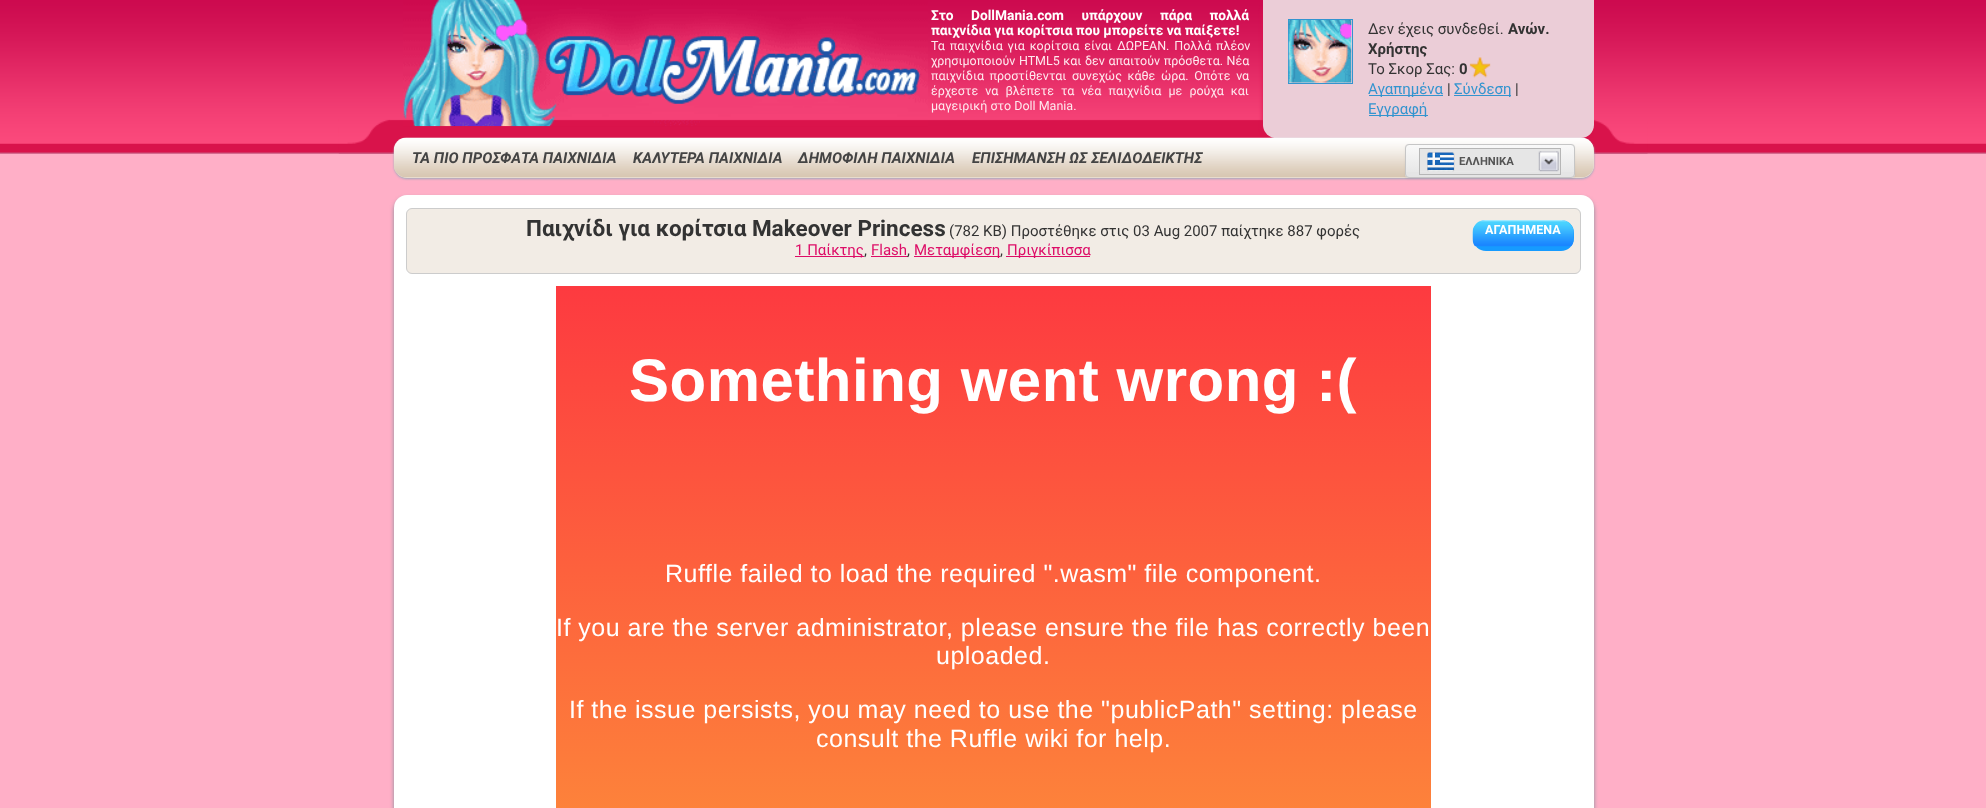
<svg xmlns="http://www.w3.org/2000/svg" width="1986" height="808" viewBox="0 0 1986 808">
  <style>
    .t1 { font: bold 13.75px Roboto; fill: #fff; }
    .t2 { font: 12.5px Roboto; fill: #ffe8ee; }
    .t3 { font: 15px Roboto; fill: #333; }
    .t4 { font: bold 15px Roboto; fill: #333; }
    .t5 { font: 15px Roboto; fill: #3394cf; }
    .t6 { font: italic bold 15px Roboto; fill: #444; }
    .t7 { font: bold 11.25px Roboto; fill: #555; }
    .t8 { font: bold 22.5px Roboto; fill: #333; }
    .t9 { font: bold 12.5px Roboto; fill: #fff; }
    .t10 { font: 15px Roboto; fill: #dd0d67; }
    .t11 { font: bold 60px Liberation Sans; letter-spacing: 0.5px; fill: #fff; }
    .t12 { font: 25px Liberation Sans; letter-spacing: 0.5px; fill: #fff; }
  </style>
  <defs>
    <clipPath id="clip1"><rect x="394" y="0" width="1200" height="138"/></clipPath>
    <linearGradient id="g1" gradientUnits="userSpaceOnUse" x1="1490" y1="145" x2="1490" y2="176"><stop offset="0" stop-color="#f9f9f9"/><stop offset="1" stop-color="#e5e5e5"/></linearGradient>
    <linearGradient id="g2" gradientUnits="userSpaceOnUse" x1="994" y1="286" x2="994" y2="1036"><stop offset="0" stop-color="#fd3a40"/><stop offset="1" stop-color="#fda138"/></linearGradient>
  </defs>
  <rect width="100%" height="100%" fill="#ffafc7"/>
  <image x="0" y="0" width="1986" height="154" href="images/1.png"/>
  <image x="338" y="119" width="1310" height="35" href="images/2.png"/>
  <image x="403" y="0" width="525" height="127" href="images/3.png"/>
  <text x="931" y="20" word-spacing="14" class="t1">Στο DollMania.com υπάρχουν πάρα πολλά</text>
  <text x="931" y="35" class="t1">παιχνίδια για κορίτσια που μπορείτε να παίξετε!</text>
  <text x="931" y="50" word-spacing="1.75" class="t2">Τα παιχνίδια για κορίτσια είναι ΔΩΡΕΑΝ. Πολλά πλέον</text>
  <text x="931" y="65" word-spacing="0.5" class="t2">χρησιμοποιούν HTML5 και δεν απαιτούν πρόσθετα. Νέα</text>
  <text x="931" y="80" word-spacing="2.5" class="t2">παιχνίδια προστίθενται συνεχώς κάθε ώρα. Οπότε να</text>
  <text x="931" y="95" word-spacing="4" class="t2">έρχεστε να βλέπετε τα νέα παιχνίδια με ρούχα και</text>
  <text x="931" y="110" class="t2">μαγειρική στο Doll Mania.</text>
  <g clip-path="url(#clip1)">
    <rect x="1263" y="1" width="331" height="138" rx="13" fill="#d9134b" filter="blur(2px)"/>
  </g>
  <path d="M1263 0H1594V125C1594 132 1588 138 1581 138H1276C1269 138 1263 132 1263 125Z" fill="#ebcdd7"/>
  <rect x="1288.5" y="19.5" width="64" height="64" fill="none" stroke="#3394cf"/>
  <image x="1288" y="20" width="64" height="63" href="images/4.png"/>
  <text x="1368" y="34" class="t3">Δεν έχεις συνδεθεί.</text>
  <text x="1508" y="34" class="t4">Ανών.</text>
  <text x="1368" y="54" class="t4">Χρήστης</text>
  <text x="1368" y="74" class="t3">Το Σκορ Σας:</text>
  <text x="1459" y="74" class="t4">0</text>
  <image x="1469" y="57" width="22" height="21" href="images/5.png"/>
  <rect x="1369" y="95" width="74" height="1" fill="#3394cf"/>
  <text x="1368" y="94" class="t5">Αγαπημένα</text>
  <text x="1447" y="94" class="t3">|</text>
  <rect x="1454" y="95" width="57" height="1" fill="#3394cf"/>
  <text x="1454" y="94" class="t5">Σύνδεση</text>
  <text x="1515" y="94" class="t3">|</text>
  <rect x="1369" y="115" width="59" height="1" fill="#3394cf"/>
  <text x="1368" y="114" class="t5">Εγγραφή</text>
  <rect x="394" y="139" width="1200" height="40" rx="13" fill="#9aaaba" filter="blur(1px)"/>
  <rect x="394" y="138" width="1200" height="40" rx="13" fill="#ece3d9"/>
  <image x="393" y="137" width="1201" height="41" href="images/6.png"/>
  <text x="412" y="163" class="t6">ΤΑ ΠΙΟ ΠΡΟΣΦΑΤΑ ΠΑΙΧΝΙΔΙΑ</text>
  <text x="633" y="163" class="t6">ΚΑΛΥΤΕΡΑ ΠΑΙΧΝΙΔΙΑ</text>
  <text x="798" y="163" class="t6">ΔΗΜΟΦΙΛΗ ΠΑΙΧΝΙΔΙΑ</text>
  <text x="972" y="163" class="t6">ΕΠΙΣΗΜΑΝΣΗ ΩΣ ΣΕΛΙΔΟΔΕΙΚΤΗΣ</text>
  <rect x="1405" y="145" width="170" height="34" rx="4" fill="#0000000d" filter="blur(1px)"/>
  <rect x="1405" y="144" width="170" height="34" rx="4" fill="#e5e5e5"/>
  <rect x="1406" y="145" width="168" height="27" fill="url(#g1)"/>
  <rect x="1405.5" y="144.5" width="169" height="33" rx="3.5" fill="none" stroke="#c6c6c6"/>
  <rect x="1420" y="149" width="140" height="22" fill="#e6e6e6"/>
  <image x="1538" y="151" width="21" height="21" href="images/7.png"/>
  <rect x="1419.5" y="148.5" width="141" height="26" fill="none" stroke="#b6b6b6"/>
  <image x="1427" y="152" width="28" height="20" href="images/8.png"/>
  <text x="1459" y="165" class="t7">ΕΛΛΗΝΙΚΑ</text>
  <rect x="394" y="198" width="1200" height="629" rx="13" fill="#848f9b" filter="blur(2px)"/>
  <rect x="394" y="195" width="1200" height="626" rx="13" fill="#fff"/>
  <rect x="406.5" y="208.5" width="1174" height="65" rx="5.5" fill="#f2ece5" stroke="#ccc"/>
  <text x="526" y="236" class="t8">Παιχνίδι για κορίτσια Makeover Princess</text>
  <text x="949" y="236" class="t3">(782 KB) Προστέθηκε στις 03 Aug 2007 παίχτηκε 887 φορές</text>
  <rect x="1473" y="220" width="101" height="31" rx="13" fill="#169bff"/>
  <image x="1472" y="220" width="102" height="27" href="images/9.png"/>
  <text x="1485" y="234" class="t9">ΑΓΑΠΗΜΕΝΑ</text>
  <rect x="795" y="256" width="69" height="1" fill="#dd0d67"/>
  <text x="795" y="255" class="t10">1 Παίκτης</text>
  <text x="864" y="255" class="t3">,</text>
  <text x="871" y="255" class="t10">Flash</text>
  <rect x="871" y="256" width="37" height="1" fill="#dd0d67"/>
  <text x="907" y="255" class="t3">,</text>
  <rect x="914" y="256" width="86" height="1" fill="#dd0d67"/>
  <text x="914" y="255" class="t10">Μεταμφίεση</text>
  <text x="1000" y="255" class="t3">,</text>
  <rect x="1006" y="256" width="84" height="1" fill="#dd0d67"/>
  <text x="1007" y="255" class="t10">Πριγκίπισσα</text>
  <rect x="556" y="286" width="875" height="522" fill="url(#g2)"/>
  <text x="629" y="401" class="t11">Something went wrong :(</text>
  <text x="665" y="582" class="t12">Ruffle failed to load the required ".wasm" file component.</text>
  <text x="556" y="636" class="t12">If you are the server administrator, please ensure the file has correctly been</text>
  <text x="936" y="664" class="t12">uploaded.</text>
  <text x="569" y="718" class="t12">If the issue persists, you may need to use the "publicPath" setting: please</text>
  <text x="816" y="747" class="t12">consult the Ruffle wiki for help.</text>
</svg>
